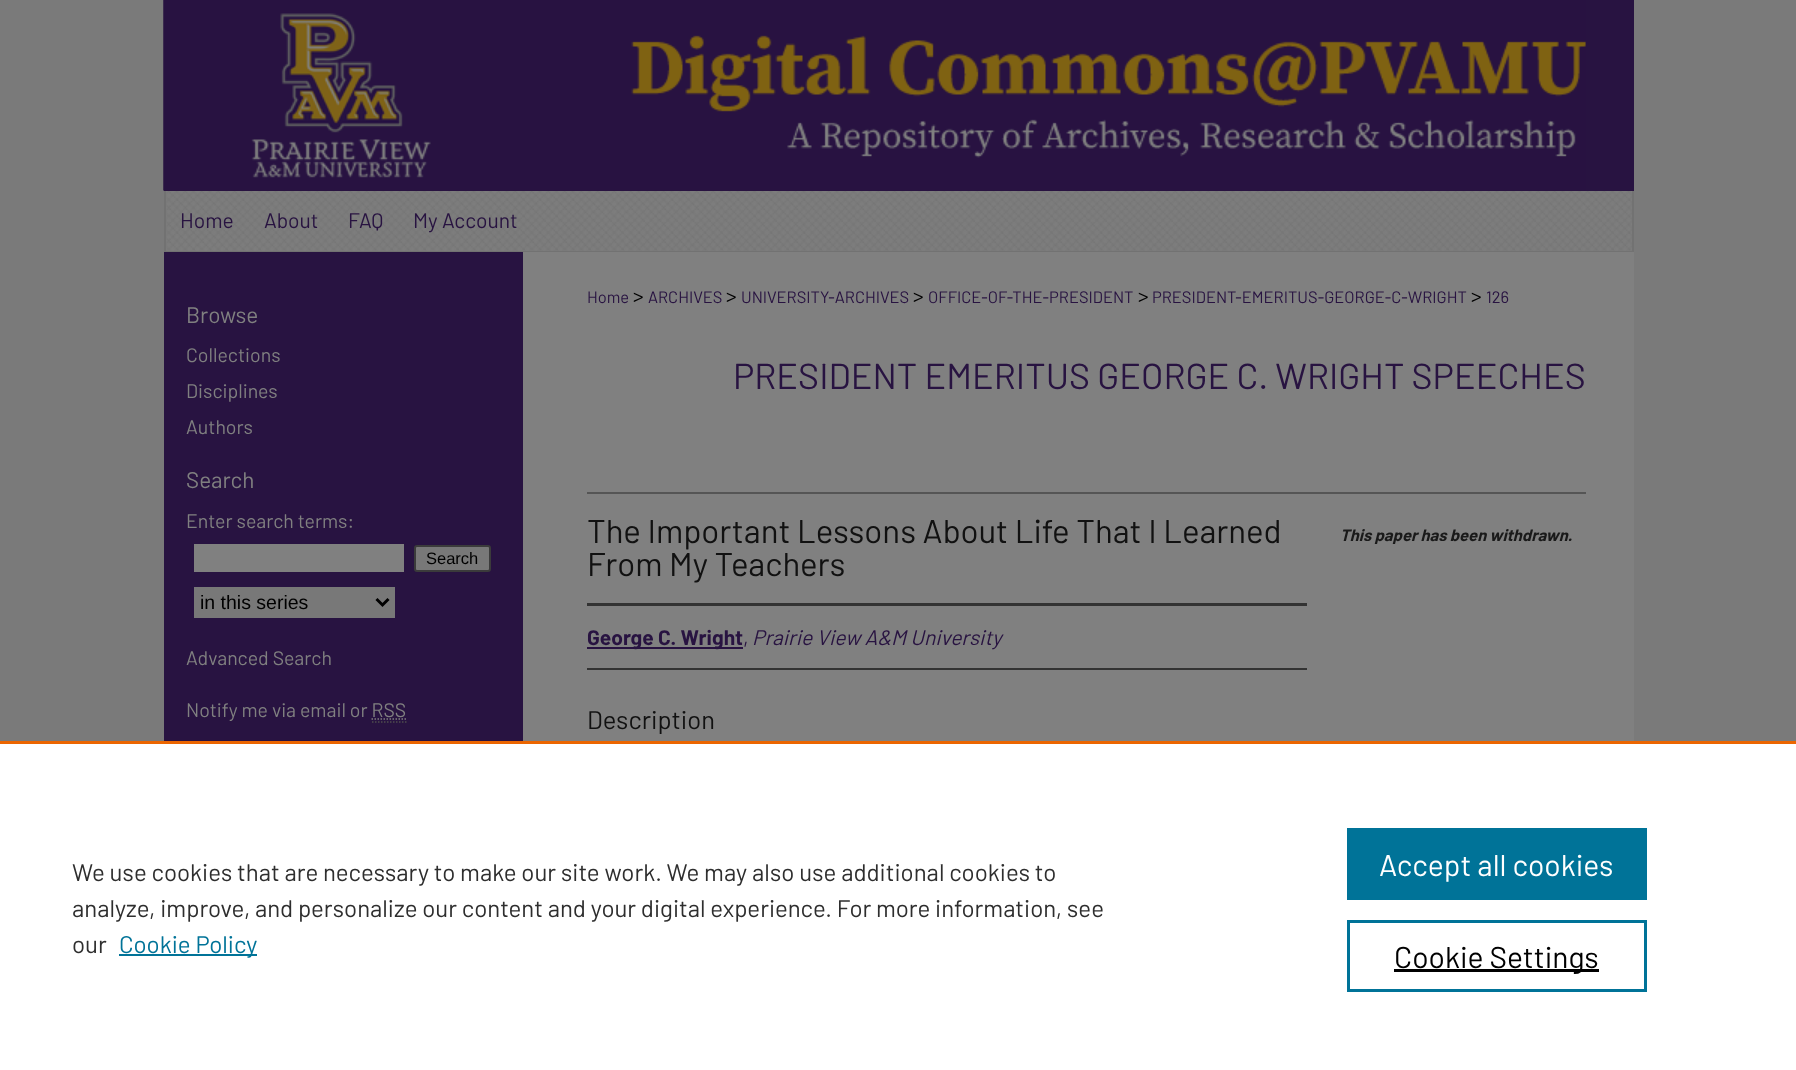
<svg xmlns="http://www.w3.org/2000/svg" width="1796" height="1070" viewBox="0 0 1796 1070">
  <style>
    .t1 { font: 21px Barlow; fill: #281341; }
    .t2 { font: 22.5px Barlow; fill: #808080; }
    .t3 { font: 19.5px Barlow; fill: #808080; }
    .t4 { font: 16.5px Liberation Sans; fill: #000; }
    .t5 { font: 19.5px Liberation Sans; fill: #000; }
    .t6 { font: 16.5px Barlow; fill: #281341; }
    .t7 { font: 21px Barlow; fill: #000; }
    .t8 { font: 36px Barlow; fill: #281341; }
    .t9 { font: 33px Barlow; fill: #111; }
    .t10 { font: bold 21px Barlow; fill: #281341; }
    .t11 { font: italic 21px Barlow; fill: #281341; }
    .t12 { font: 25.5px Barlow; fill: #111; }
    .t13 { font: italic bold 16.5px Barlow; fill: #1a1a1a; }
    .t14 { font: 24px Barlow; fill: #2e2e2e; }
    .t15 { font: 24px Barlow; fill: #007398; }
    .t16 { font: 30px Barlow; fill: #fff; }
    .t17 { font: 30px Barlow; fill: #000; }
  </style>
  <rect width="100%" height="100%" fill="#7a7a7a"/>
  <rect x="164" y="0" width="1470" height="191" fill="#281341"/>
  <image x="163" y="0" width="1423" height="191" href="images/1.png"/>
  <image x="163" y="0" width="1" height="191" href="images/2.png"/>
  <image x="166" y="191" width="1466" height="60" href="images/3.png"/>
  <rect x="1632" y="191" width="2" height="61" fill="#727272"/>
  <rect x="164" y="251" width="1470" height="1" fill="#727272"/>
  <rect x="164" y="191" width="2" height="61" fill="#727272"/>
  <text x="180" y="228" class="t1">Home</text>
  <text x="264" y="228" class="t1">About</text>
  <text x="348" y="228" class="t1">FAQ</text>
  <text x="413" y="228" class="t1">My Account</text>
  <rect x="164" y="252" width="359" height="489" fill="#281341"/>
  <rect x="523" y="252" width="1111" height="489" fill="#808080"/>
  <text x="186" y="323" class="t2">Browse</text>
  <text x="186" y="362" class="t3">Collections</text>
  <text x="186" y="398" class="t3">Disciplines</text>
  <text x="186" y="434" class="t3">Authors</text>
  <text x="186" y="488" class="t2">Search</text>
  <text x="186" y="528" class="t3">Enter search terms:</text>
  <rect x="194" y="544" width="210" height="28" fill="#808080"/>
  <rect x="415" y="546" width="75" height="25" rx="2" fill="#787878" stroke="#3b3b3b" stroke-width="2"/>
  <text x="426" y="564" class="t4">Search</text>
  <rect x="194" y="587" width="201" height="31" fill="#787878"/>
  <path d="M376.5 599L382.5 605L388.5 599" fill="none" stroke="#000" stroke-width="3"/>
  <text x="200" y="609" class="t5">in this series</text>
  <text x="186" y="665" class="t3">Advanced Search</text>
  <text x="186" y="717" class="t3">Notify me via email or RSS</text>
  <path d="M371.5 719H406" fill="none" stroke="#808080" stroke-width="1.5" stroke-dasharray="1.5 1.5"/>
  <path d="M372 722H406.5" fill="none" stroke="#4d4d4d" stroke-width="1.5" stroke-dasharray="1.5 1.5"/>
  <text x="587" y="303" class="t6">Home</text>
  <text x="633" y="303" class="t7">&gt;</text>
  <text x="648" y="303" class="t6">ARCHIVES</text>
  <text x="726" y="303" class="t7">&gt;</text>
  <text x="741" y="303" class="t6">UNIVERSITY-ARCHIVES</text>
  <text x="913" y="303" class="t7">&gt;</text>
  <text x="928" y="303" class="t6">OFFICE-OF-THE-PRESIDENT</text>
  <text x="1138" y="303" class="t7">&gt;</text>
  <text x="1152" y="303" class="t6">PRESIDENT-EMERITUS-GEORGE-C-WRIGHT</text>
  <text x="1471" y="303" class="t7">&gt;</text>
  <text x="1486" y="303" class="t6">126</text>
  <text x="733" y="389" class="t8">PRESIDENT EMERITUS GEORGE C. WRIGHT SPEECHES</text>
  <rect x="587" y="492" width="999" height="2" fill="#555"/>
  <text x="587" y="543" class="t9">The Important Lessons About Life That I Learned</text>
  <text x="587" y="576" class="t9">From My Teachers</text>
  <rect x="587" y="603" width="720" height="3" fill="#333"/>
  <rect x="587" y="668" width="720" height="2" fill="#333"/>
  <rect x="587" y="647" width="156" height="2" fill="#281341"/>
  <text x="587" y="645" class="t10">George C. Wright</text>
  <text x="743" y="645" class="t1">,</text>
  <text x="752" y="645" class="t11">Prairie View A&amp;M University</text>
  <text x="587" y="729" class="t12">Description</text>
  <text x="1340" y="541" class="t13">This paper has been withdrawn.</text>
  <rect x="0" y="744" width="1796" height="326" fill="#fff"/>
  <rect x="0" y="741" width="1796" height="3" fill="#eb6500"/>
  <text x="72" y="881" class="t14">We use cookies that are necessary to make our site work. We may also use additional cookies to</text>
  <text x="72" y="917" class="t14">analyze, improve, and personalize our content and your digital experience. For more information, see</text>
  <text x="72" y="953" class="t14">our</text>
  <rect x="119" y="954" width="138" height="2" fill="#007398"/>
  <text x="119" y="953" class="t15">Cookie Policy</text>
  <rect x="1347" y="828" width="300" height="72" fill="#007398"/>
  <text x="1379" y="876" class="t16">Accept all cookies</text>
  <rect x="1348.5" y="921.5" width="297" height="69" fill="none" stroke="#007398" stroke-width="3"/>
  <rect x="1394" y="969" width="205" height="3" fill="#000"/>
  <text x="1394" y="968" class="t17">Cookie Settings</text>
</svg>
